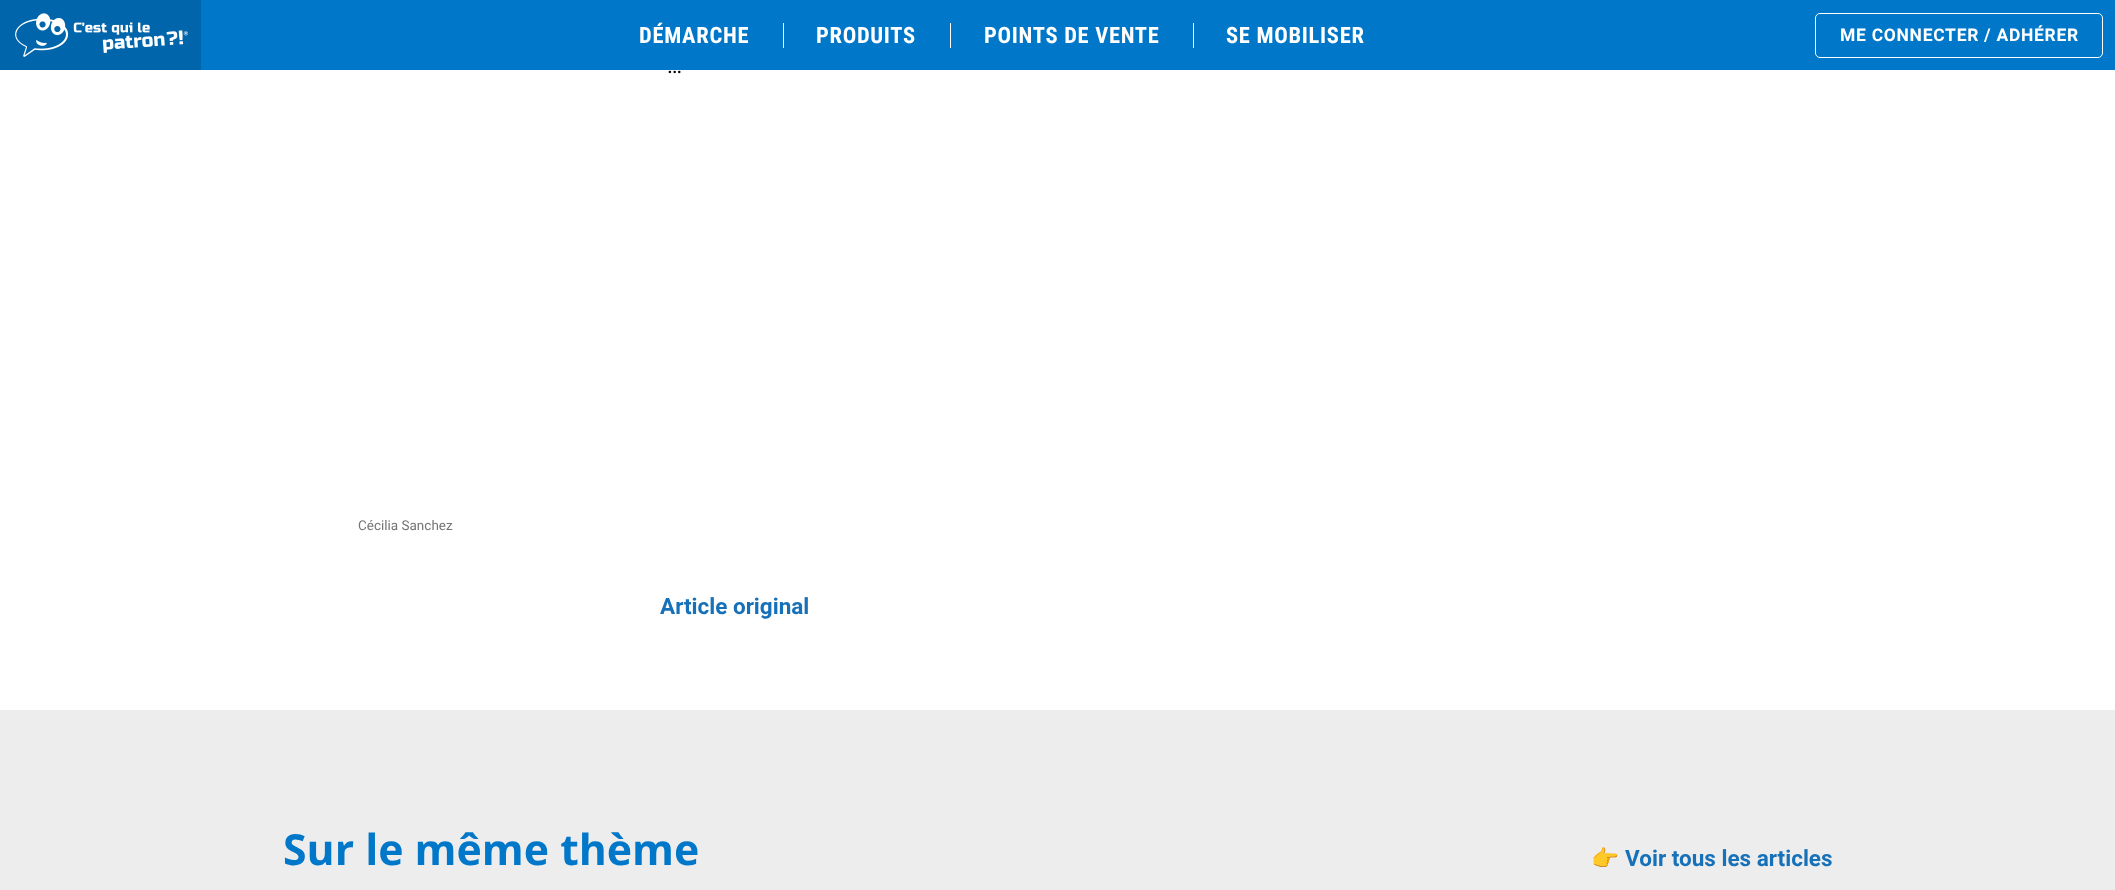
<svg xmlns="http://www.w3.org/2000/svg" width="2115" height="890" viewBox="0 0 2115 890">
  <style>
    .t1 { font: bold 22.5px Roboto Condensed; letter-spacing: 0.7px; fill: #fff; }
    .t2 { font: bold 17.5px Roboto; letter-spacing: 0.7px; fill: #fff; }
    .t3 { font: 22.5px Roboto; fill: #000; }
    .t4 { font: 13.5px Roboto; fill: #747474; }
    .t5 { font: bold 22.5px Roboto; fill: #1771b9; }
    .t6 { font: bold 42.75px Open Sans; fill: #0077c8; }
    .t7 { font: bold 22.5px Noto Color Emoji; fill: #1771b9; }
  </style>
  <rect width="100%" height="100%" fill="#fff"/>
  <rect x="201" y="0" width="1914" height="70" fill="#0077c8"/>
  <rect x="0" y="0" width="201" height="70" fill="#0065aa"/>
  <image x="15" y="13" width="173" height="44" href="images/1.png"/>
  <text x="639" y="43" class="t1">DÉMARCHE</text>
  <rect x="783" y="23" width="1" height="25" fill="#fff"/>
  <text x="816" y="43" class="t1">PRODUITS</text>
  <rect x="950" y="23" width="1" height="25" fill="#fff"/>
  <text x="984" y="43" class="t1">POINTS DE VENTE</text>
  <rect x="1193" y="23" width="1" height="25" fill="#fff"/>
  <text x="1226" y="43" class="t1">SE MOBILISER</text>
  <rect x="1815.5" y="13.5" width="287" height="44" rx="4.5" fill="none" stroke="#fff"/>
  <text x="1840" y="41" class="t2">ME CONNECTER / ADHÉRER</text>
  <text x="667" y="73" class="t3">…</text>
  <text x="358" y="530" class="t4">Cécilia Sanchez</text>
  <text x="660" y="614" class="t5">Article original</text>
  <rect x="0" y="710" width="2115" height="180" fill="#ededed"/>
  <text x="283" y="865" class="t6">Sur le même thème</text>
  <text x="1591" y="866" class="t7">👉</text>
  <text x="1625" y="866" class="t5">Voir tous les articles</text>
</svg>
